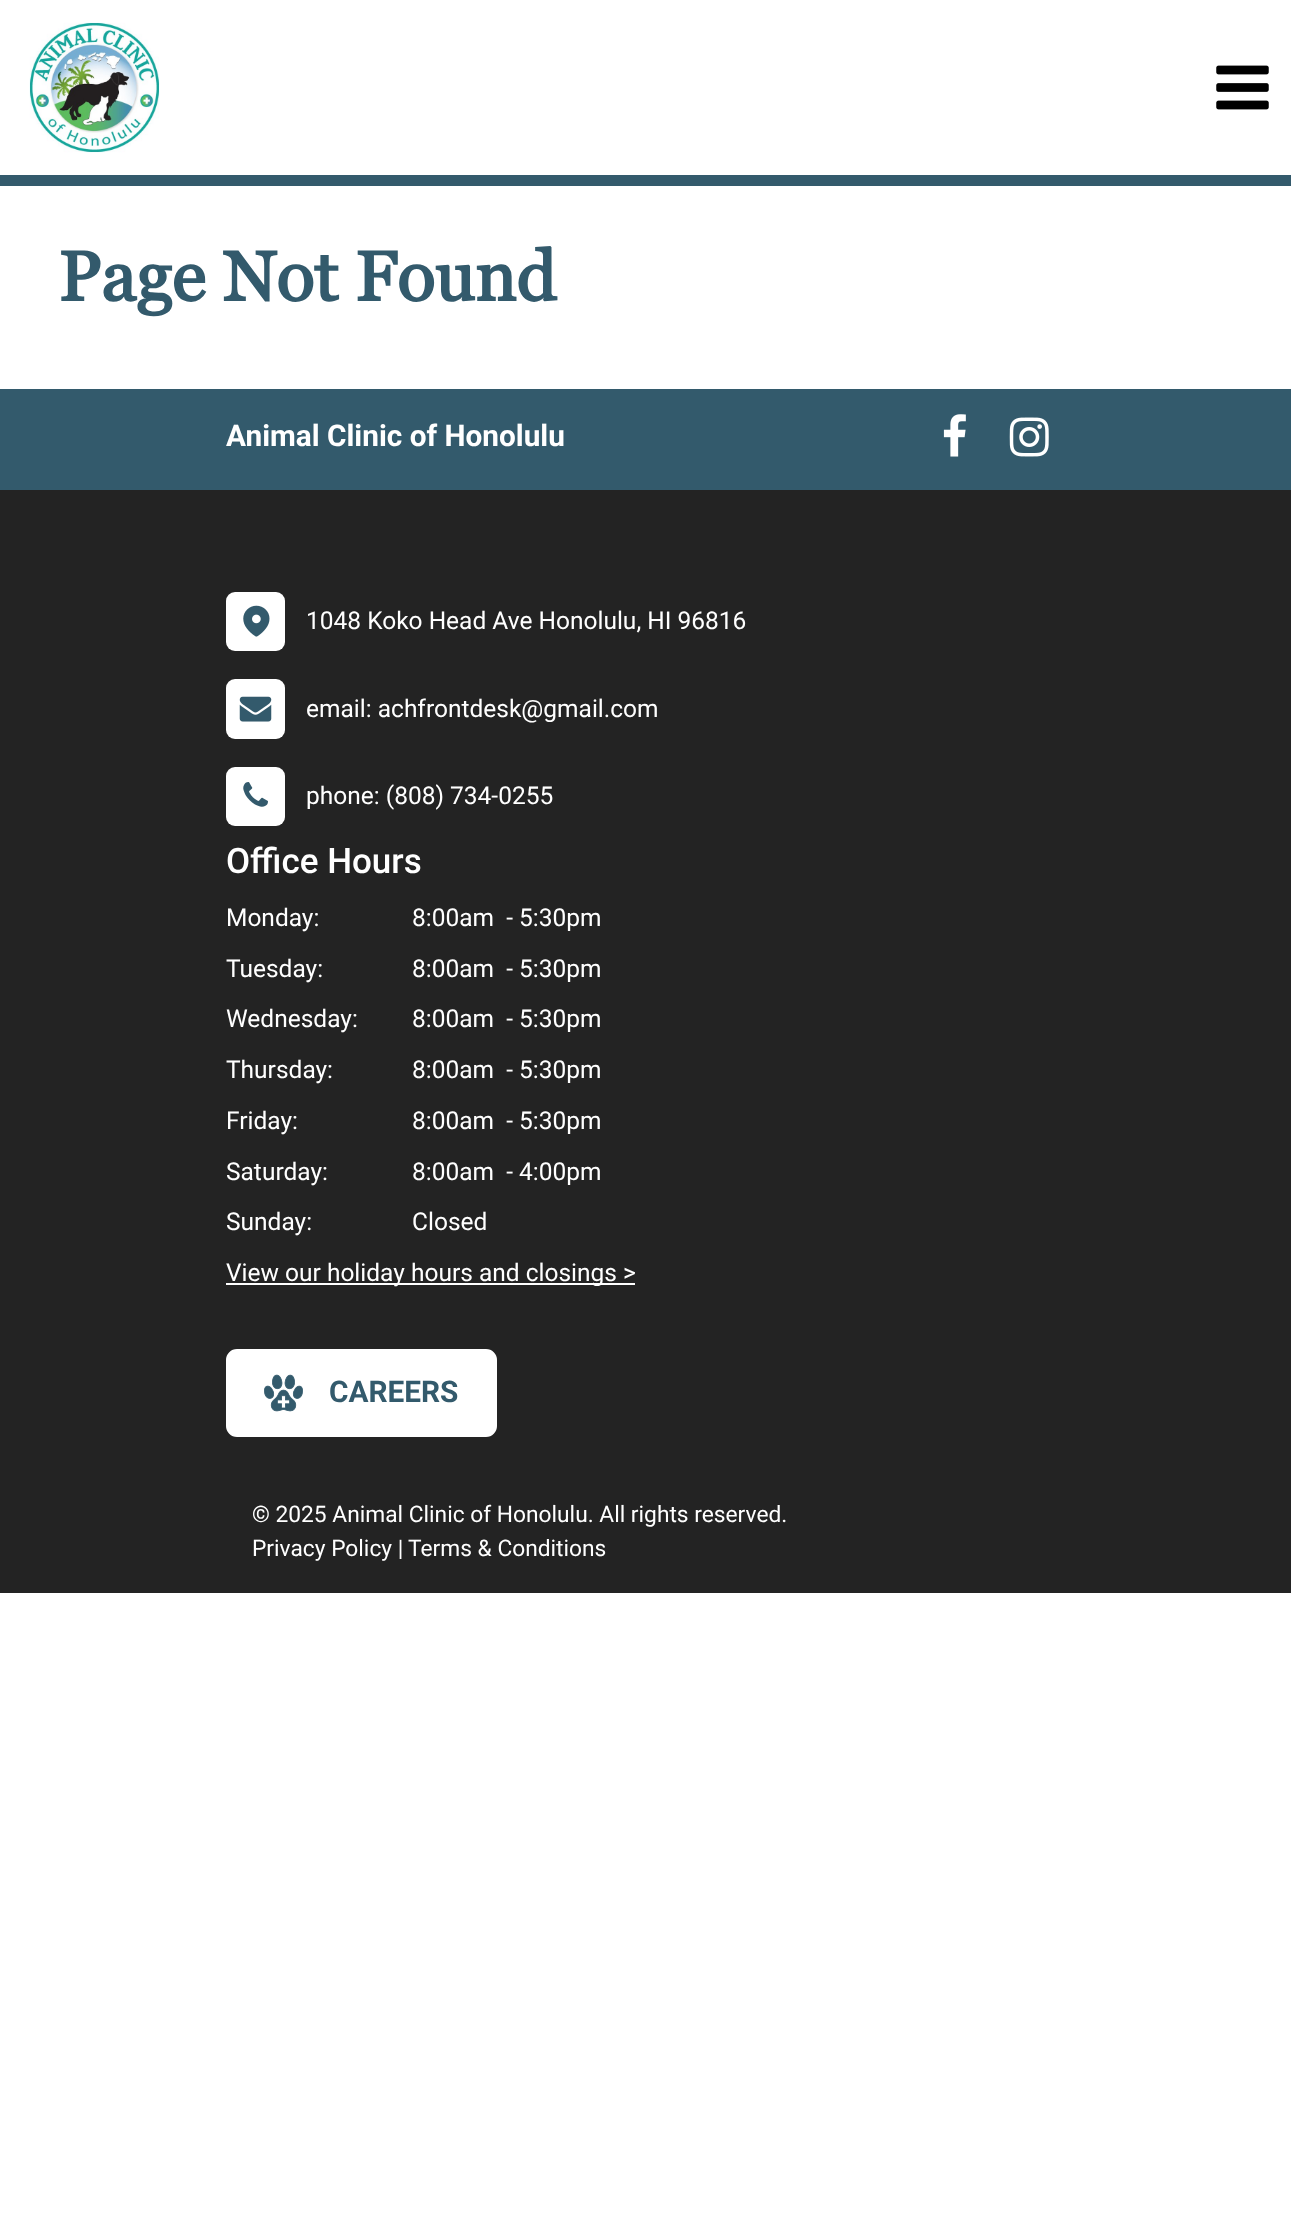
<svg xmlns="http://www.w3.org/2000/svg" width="1291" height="2215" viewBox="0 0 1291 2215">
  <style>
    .t1 { font: bold 70px Georgia; fill: #335a6c; }
    .t2 { font: bold 29.75px Roboto; fill: #fff; }
    .t3 { font: 24.5px Roboto; fill: #fff; }
    .t4 { font: 500 35px Roboto; fill: #fff; }
    .t5 { font: bold 29.75px Roboto; fill: #335a6c; }
    .t6 { font: 22.75px Roboto; fill: #fff; }
  </style>
  <rect width="100%" height="100%" fill="#fff"/>
  <rect x="0" y="175" width="1291" height="11" fill="#335a6c"/>
  <image x="29" y="22" width="131" height="131" href="images/1.png"/>
  <image x="1216" y="65" width="53" height="45" href="images/2.png"/>
  <text x="58" y="301" class="t1">Page Not Found</text>
  <rect x="0" y="389" width="1291" height="101" fill="#335a6c"/>
  <text x="226" y="446" class="t2">Animal Clinic of Honolulu</text>
  <image x="943" y="414" width="23" height="43" href="images/3.png"/>
  <image x="1009" y="417" width="40" height="40" href="images/4.png"/>
  <rect x="0" y="490" width="1291" height="1103" fill="#232323"/>
  <rect x="226" y="592" width="59" height="59" rx="9" fill="#fff"/>
  <image x="243" y="605" width="27" height="32" href="images/5.png"/>
  <text x="306" y="629" class="t3">1048 Koko Head Ave Honolulu, HI 96816</text>
  <rect x="226" y="679" width="59" height="60" rx="9" fill="#fff"/>
  <image x="239" y="696" width="33" height="26" href="images/6.png"/>
  <text x="306" y="717" class="t3">email: achfrontdesk@gmail.com</text>
  <rect x="226" y="767" width="59" height="59" rx="9" fill="#fff"/>
  <image x="243" y="782" width="25" height="25" href="images/7.png"/>
  <text x="306" y="804" class="t3">phone: (808) 734-0255</text>
  <text x="226" y="873" class="t4">Office Hours</text>
  <text x="226" y="926" class="t3">Monday:</text>
  <text x="412" y="926" class="t3" xml:space="preserve">8:00am  - 5:30pm</text>
  <text x="226" y="977" class="t3">Tuesday:</text>
  <text x="412" y="977" class="t3" xml:space="preserve">8:00am  - 5:30pm</text>
  <text x="226" y="1027" class="t3">Wednesday:</text>
  <text x="412" y="1027" class="t3" xml:space="preserve">8:00am  - 5:30pm</text>
  <text x="226" y="1078" class="t3">Thursday:</text>
  <text x="412" y="1078" class="t3" xml:space="preserve">8:00am  - 5:30pm</text>
  <text x="226" y="1129" class="t3">Friday:</text>
  <text x="412" y="1129" class="t3" xml:space="preserve">8:00am  - 5:30pm</text>
  <text x="226" y="1180" class="t3">Saturday:</text>
  <text x="412" y="1180" class="t3" xml:space="preserve">8:00am  - 4:00pm</text>
  <text x="226" y="1230" class="t3">Sunday:</text>
  <text x="412" y="1230" class="t3">Closed</text>
  <rect x="226" y="1283" width="409" height="2" fill="#fff"/>
  <text x="226" y="1281" class="t3">View our holiday hours and closings &gt;</text>
  <rect x="228" y="1351" width="267" height="84" rx="9" fill="#fff" stroke="#fff" stroke-width="4"/>
  <image x="264" y="1374" width="39" height="38" href="images/8.png"/>
  <text x="329" y="1402" class="t5">CAREERS</text>
  <text x="252" y="1522" class="t6">© 2025 Animal Clinic of Honolulu. All rights reserved.</text>
  <text x="252" y="1556" class="t6">Privacy Policy |</text>
  <text x="408" y="1556" class="t6">Terms &amp; Conditions</text>
</svg>
